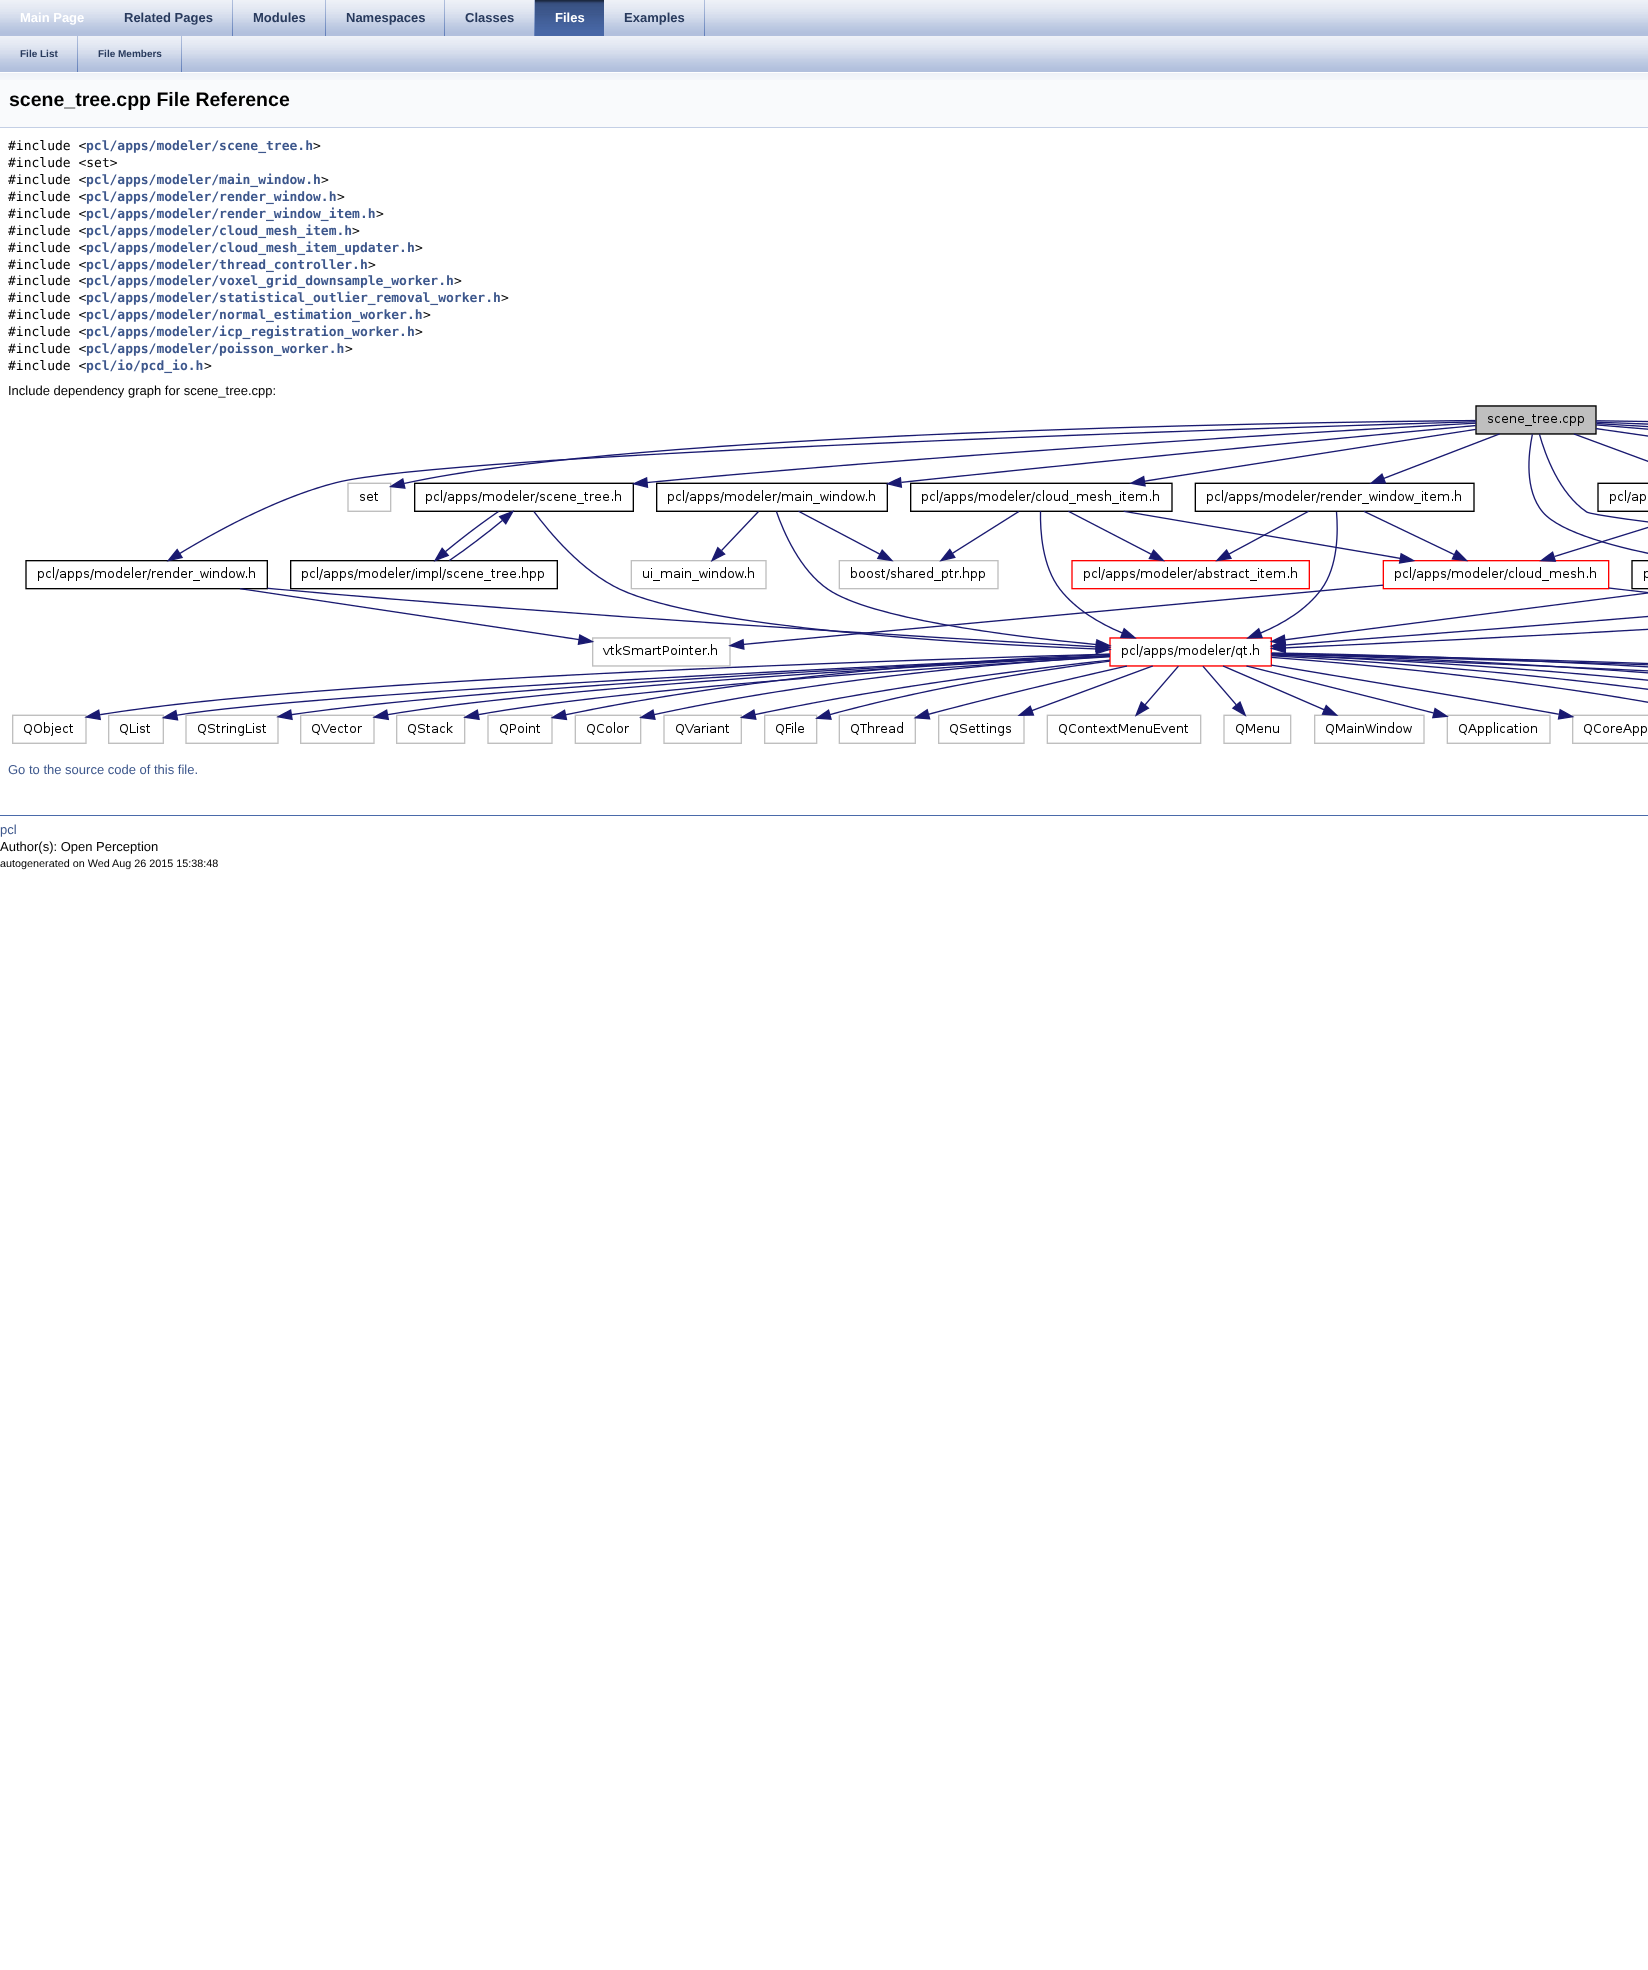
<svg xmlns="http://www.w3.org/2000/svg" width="1648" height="1970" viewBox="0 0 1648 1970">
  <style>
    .t1 { font: bold 13px Liberation Sans; fill: #fff; }
    .t2 { font: bold 13px Liberation Sans; fill: #283a5d; }
    .t3 { font: bold 10px Liberation Sans; fill: #283a5d; }
    .t4 { font: bold 19.5px Liberation Sans; fill: #000; }
    .t5 { font: 13px DejaVu Sans Mono; fill: #000; }
    .t6 { font: bold 13px DejaVu Sans Mono; fill: #3d578c; }
    .t7 { font: 13px Liberation Sans; fill: #000; }
    .t8 { font: 13px Liberation Sans; fill: #3d578c; }
    .t9 { font: 10.8px Liberation Sans; fill: #000; }
  </style>
  <rect width="100%" height="100%" fill="#fff"/>
  <image x="0" y="0" width="1648" height="36" href="images/1.png"/>
  <text x="20" y="22" class="t1">Main Page</text>
  <image x="232" y="0" width="1" height="36" href="images/2.png"/>
  <text x="124" y="22" class="t2">Related Pages</text>
  <image x="325" y="0" width="1" height="36" href="images/2.png"/>
  <text x="253" y="22" class="t2">Modules</text>
  <image x="444" y="0" width="1" height="36" href="images/2.png"/>
  <text x="346" y="22" class="t2">Namespaces</text>
  <image x="534" y="0" width="1" height="36" href="images/2.png"/>
  <text x="465" y="22" class="t2">Classes</text>
  <image x="535" y="0" width="69" height="36" href="images/3.png"/>
  <text x="555" y="22" class="t1">Files</text>
  <image x="704" y="0" width="1" height="36" href="images/2.png"/>
  <text x="624" y="22" class="t2">Examples</text>
  <image x="0" y="36" width="1648" height="36" href="images/1.png"/>
  <image x="77" y="36" width="1" height="36" href="images/2.png"/>
  <text x="20" y="57" class="t3">File List</text>
  <image x="181" y="36" width="1" height="36" href="images/2.png"/>
  <text x="98" y="57" class="t3">File Members</text>
  <rect x="0" y="80" width="1648" height="47" fill="#f9fafc"/>
  <image x="0" y="72" width="1648" height="8" href="images/4.png"/>
  <rect x="0" y="127" width="1648" height="1" fill="#c4cfe5"/>
  <text x="9" y="106" class="t4">scene_tree.cpp File Reference</text>
  <text x="8" y="150" class="t5">#include &lt;</text>
  <text x="86" y="150" class="t6">pcl/apps/modeler/scene_tree.h</text>
  <text x="313" y="150" class="t5">&gt;</text>
  <text x="8" y="167" class="t5">#include &lt;set&gt;</text>
  <text x="8" y="184" class="t5">#include &lt;</text>
  <text x="86" y="184" class="t6">pcl/apps/modeler/main_window.h</text>
  <text x="321" y="184" class="t5">&gt;</text>
  <text x="8" y="201" class="t5">#include &lt;</text>
  <text x="86" y="201" class="t6">pcl/apps/modeler/render_window.h</text>
  <text x="337" y="201" class="t5">&gt;</text>
  <text x="8" y="218" class="t5">#include &lt;</text>
  <text x="86" y="218" class="t6">pcl/apps/modeler/render_window_item.h</text>
  <text x="376" y="218" class="t5">&gt;</text>
  <text x="8" y="235" class="t5">#include &lt;</text>
  <text x="86" y="235" class="t6">pcl/apps/modeler/cloud_mesh_item.h</text>
  <text x="352" y="235" class="t5">&gt;</text>
  <text x="8" y="252" class="t5">#include &lt;</text>
  <text x="86" y="252" class="t6">pcl/apps/modeler/cloud_mesh_item_updater.h</text>
  <text x="415" y="252" class="t5">&gt;</text>
  <text x="8" y="269" class="t5">#include &lt;</text>
  <text x="86" y="269" class="t6">pcl/apps/modeler/thread_controller.h</text>
  <text x="368" y="269" class="t5">&gt;</text>
  <text x="8" y="285" class="t5">#include &lt;</text>
  <text x="86" y="285" class="t6">pcl/apps/modeler/voxel_grid_downsample_worker.h</text>
  <text x="454" y="285" class="t5">&gt;</text>
  <text x="8" y="302" class="t5">#include &lt;</text>
  <text x="86" y="302" class="t6">pcl/apps/modeler/statistical_outlier_removal_worker.h</text>
  <text x="501" y="302" class="t5">&gt;</text>
  <text x="8" y="319" class="t5">#include &lt;</text>
  <text x="86" y="319" class="t6">pcl/apps/modeler/normal_estimation_worker.h</text>
  <text x="423" y="319" class="t5">&gt;</text>
  <text x="8" y="336" class="t5">#include &lt;</text>
  <text x="86" y="336" class="t6">pcl/apps/modeler/icp_registration_worker.h</text>
  <text x="415" y="336" class="t5">&gt;</text>
  <text x="8" y="353" class="t5">#include &lt;</text>
  <text x="86" y="353" class="t6">pcl/apps/modeler/poisson_worker.h</text>
  <text x="345" y="353" class="t5">&gt;</text>
  <text x="8" y="370" class="t5">#include &lt;</text>
  <text x="86" y="370" class="t6">pcl/io/pcd_io.h</text>
  <text x="204" y="370" class="t5">&gt;</text>
  <text x="8" y="395" class="t7">Include dependency graph for scene_tree.cpp:</text>
  <image x="12" y="405" width="1636" height="339" href="images/5.png"/>
  <text x="8" y="774" class="t8">Go to the source code of this file.</text>
  <rect x="0" y="815" width="1648" height="1" fill="#4a6aaa"/>
  <text x="0" y="834" class="t8">pcl</text>
  <text x="0" y="851" class="t7">Author(s): Open Perception</text>
  <text x="0" y="867" class="t9">autogenerated on Wed Aug 26 2015 15:38:48</text>
</svg>
